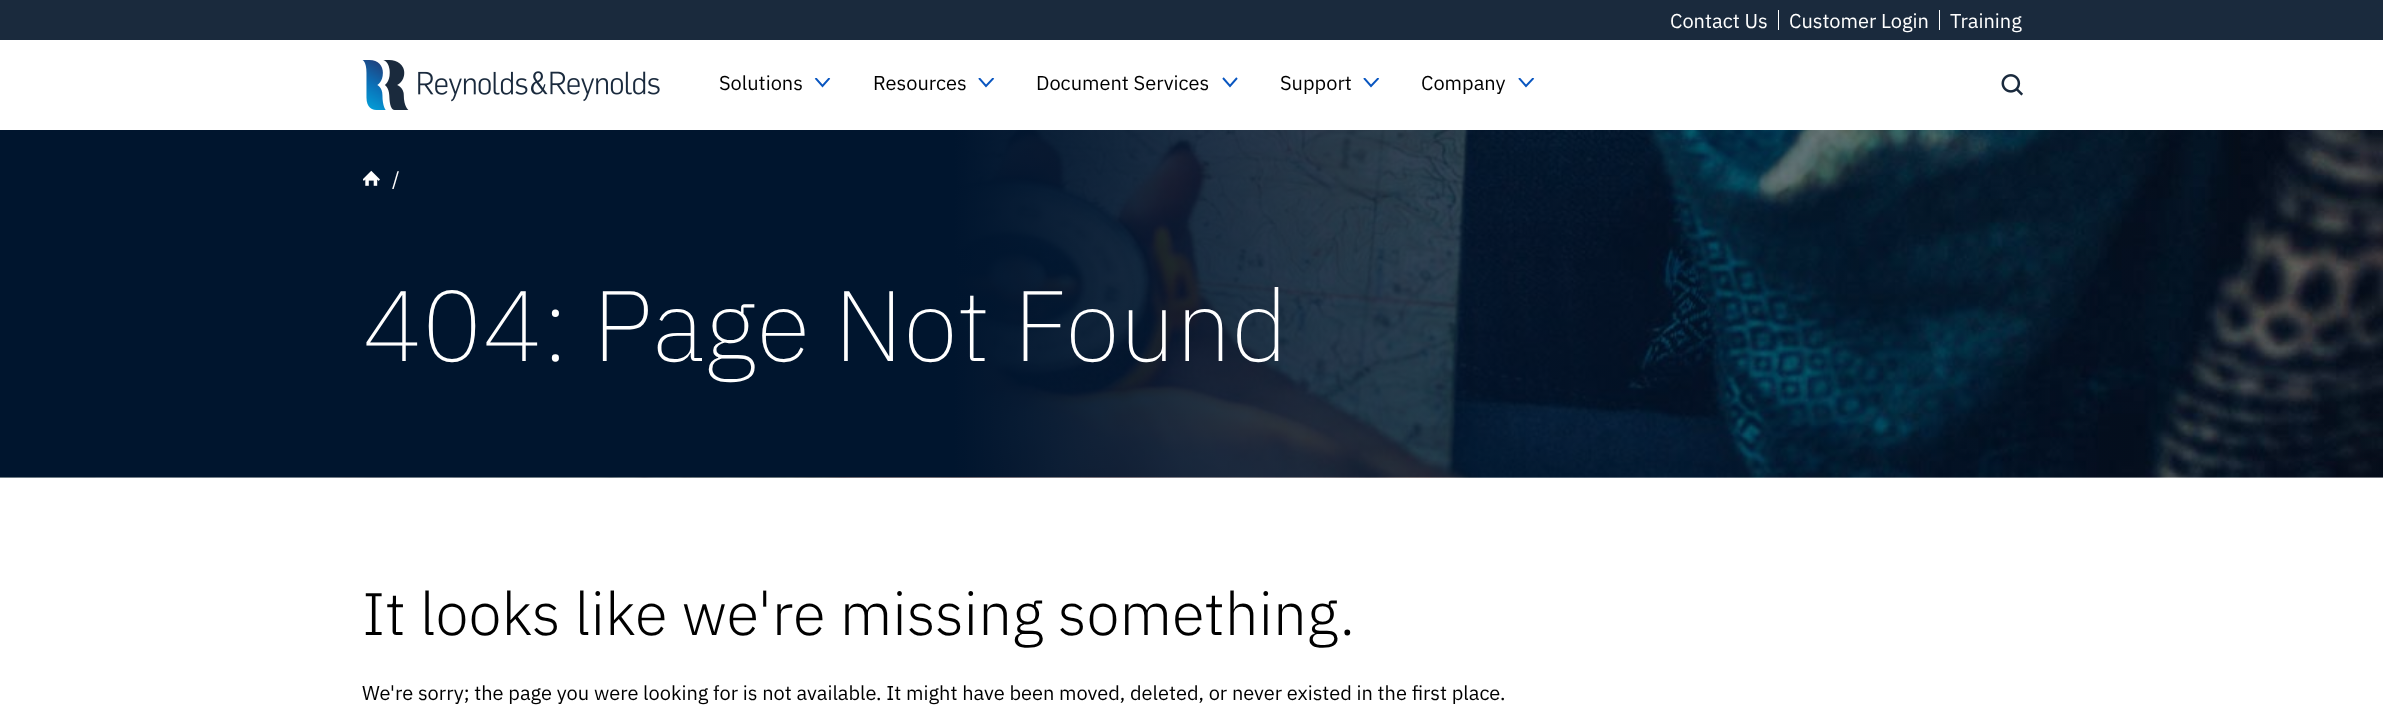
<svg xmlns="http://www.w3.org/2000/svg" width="2383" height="722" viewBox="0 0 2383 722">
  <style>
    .t1 { font: 20px IBM Plex Sans; fill: #fff; }
    .t2 { font: 20px IBM Plex Sans; fill: #000; }
    .t3 { font: 200 100px IBM Plex Sans; fill: #fff; }
    .t4 { font: 300 60px IBM Plex Sans; fill: #000; }
  </style>
  <defs>
    <clipPath id="clip1"><rect x="813" y="78" width="20" height="10"/></clipPath>
    <clipPath id="clip2"><rect x="976" y="78" width="20" height="10"/></clipPath>
    <clipPath id="clip3"><rect x="1361" y="78" width="20" height="10"/></clipPath>
    <clipPath id="clip4"><rect x="1516" y="78" width="20" height="10"/></clipPath>
  </defs>
  <rect width="100%" height="100%" fill="#fff"/>
  <rect x="0" y="0" width="2383" height="40" fill="#1a2a3d"/>
  <text x="1670" y="28" class="t1">Contact Us</text>
  <rect x="1778" y="10" width="1" height="20" fill="#fff"/>
  <text x="1789" y="28" class="t1">Customer Login</text>
  <rect x="1939" y="10" width="1" height="20" fill="#fff"/>
  <text x="1950" y="28" class="t1">Training</text>
  <image x="362" y="60" width="298" height="50" href="images/1.png"/>
  <text x="719" y="90" class="t2">Solutions</text>
  <g clip-path="url(#clip1)">
    <path d="M829.5 78L822.5 86L815.5 78" fill="none" stroke="#0956c0" stroke-width="1.9"/>
  </g>
  <text x="873" y="90" class="t2">Resources</text>
  <g clip-path="url(#clip2)">
    <path d="M993.5 78L986 86L979 78" fill="none" stroke="#0956c0" stroke-width="1.9"/>
  </g>
  <text x="1036" y="90" class="t2">Document Services</text>
  <path d="M1237 78L1230 86L1223 78" fill="none" stroke="#0956c0" stroke-width="1.9"/>
  <text x="1280" y="90" class="t2">Support</text>
  <g clip-path="url(#clip3)">
    <path d="M1378.5 78L1371 86L1364 78" fill="none" stroke="#0956c0" stroke-width="1.9"/>
  </g>
  <text x="1421" y="90" class="t2">Company</text>
  <g clip-path="url(#clip4)">
    <path d="M1533.5 78L1526 86L1519 78" fill="none" stroke="#0956c0" stroke-width="1.9"/>
  </g>
  <image x="2001" y="74" width="22" height="22" href="images/2.png"/>
  <image x="0" y="130" width="2383" height="348" href="images/4.png"/>
  <image x="363" y="170" width="17" height="16" href="images/3.png"/>
  <text x="392" y="186" class="t1">/</text>
  <text x="362" y="361" class="t3">404: Page Not Found</text>
  <text x="362" y="635" class="t4">It looks like we're missing something.</text>
  <text x="362" y="700" class="t2">We're sorry; the page you were looking for is not available. It might have been moved, deleted, or never existed in the first place.</text>
</svg>
